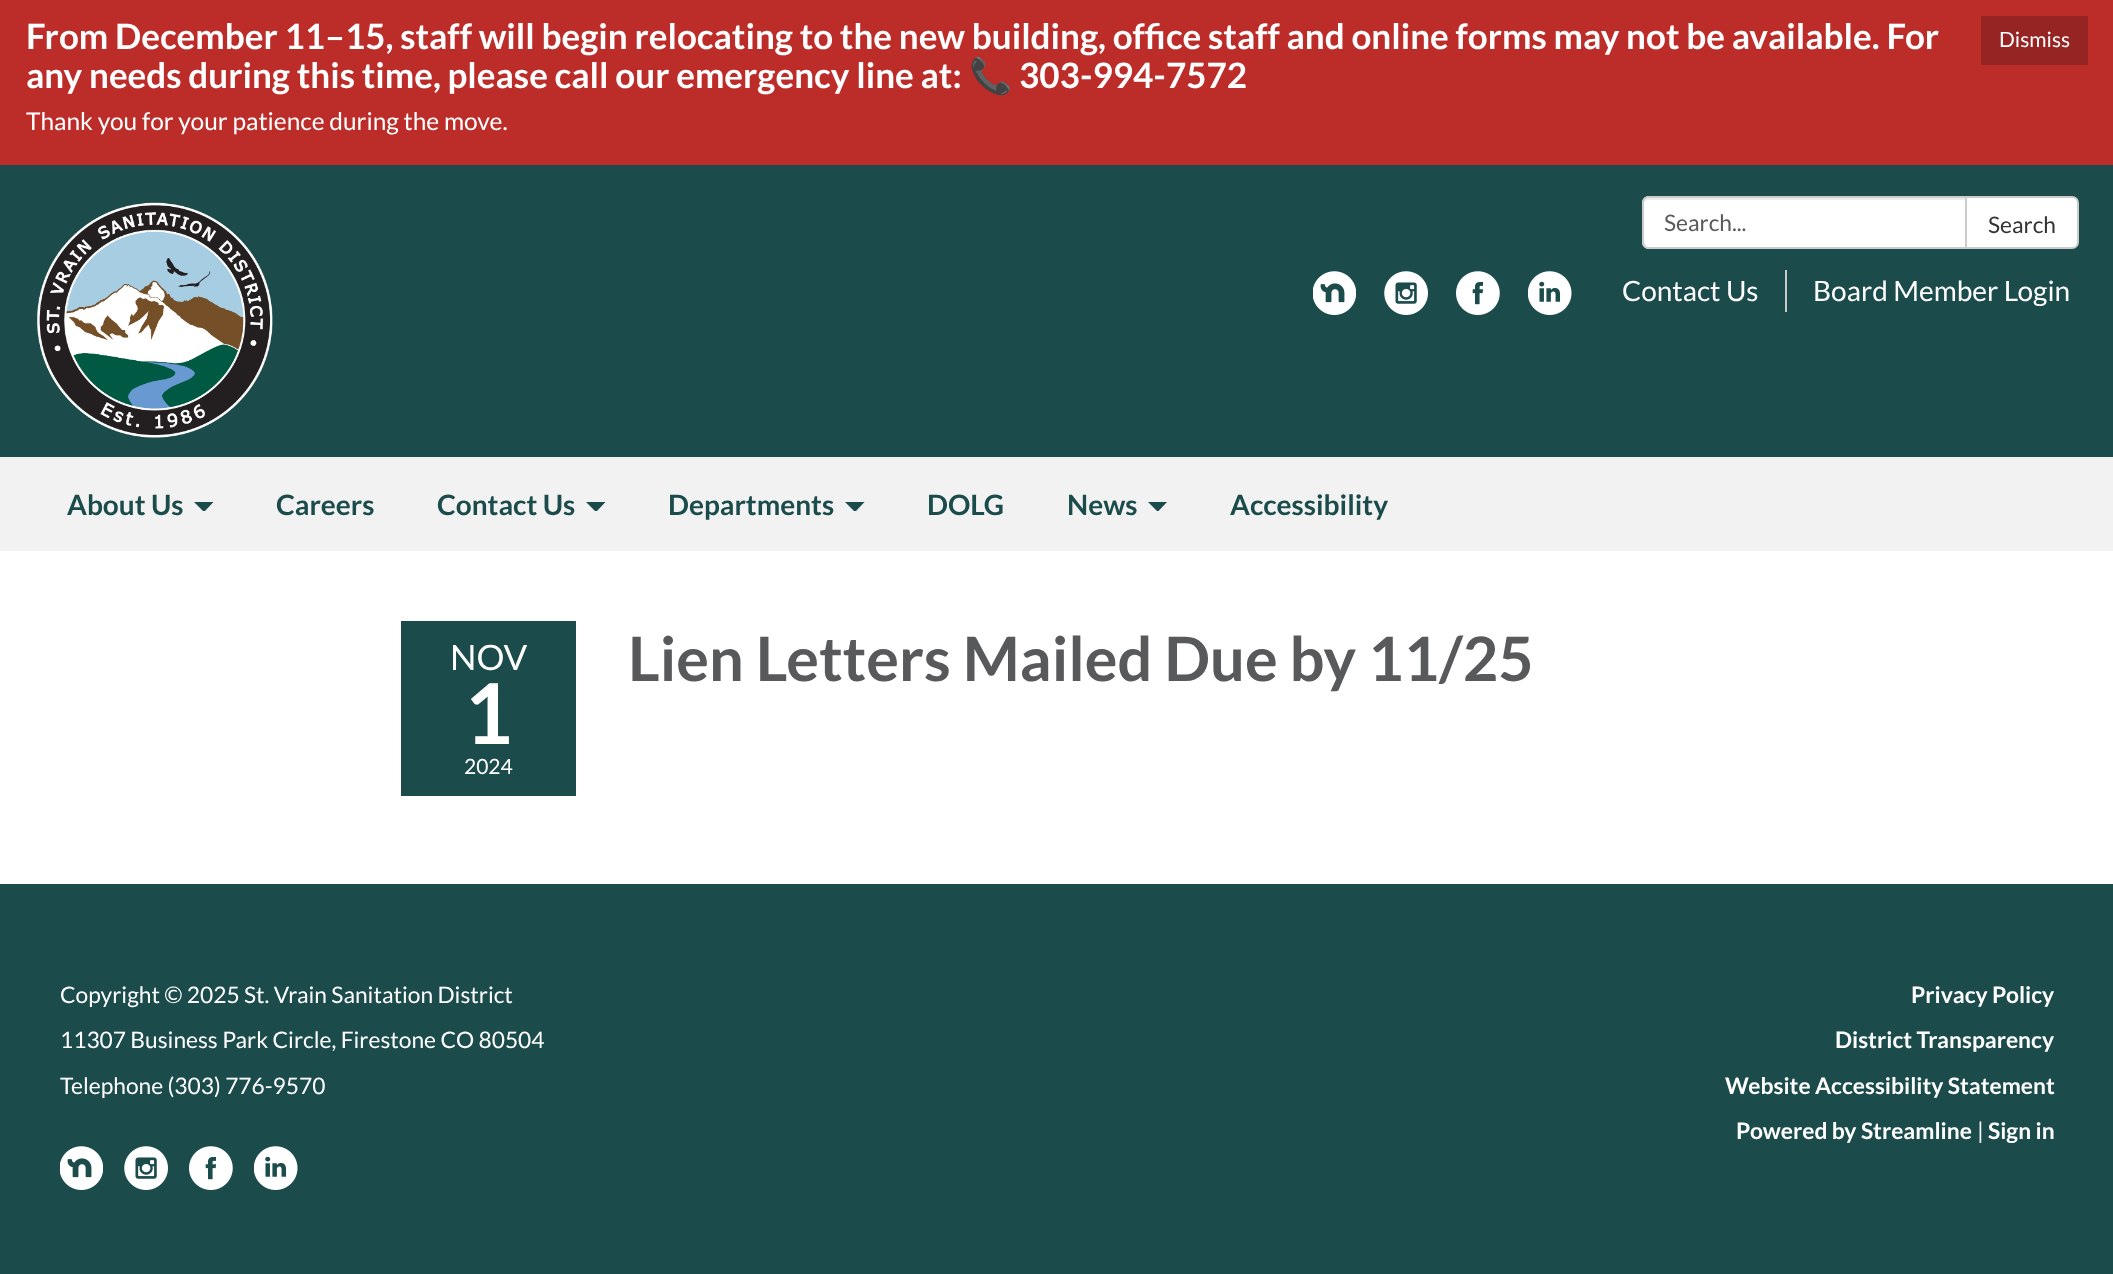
<svg xmlns="http://www.w3.org/2000/svg" width="2113" height="1274" viewBox="0 0 2113 1274">
  <style>
    .t1 { font: bold 35px Lato; fill: #fff; }
    .t2 { font: bold 35px Noto Color Emoji; fill: #fff; }
    .t3 { font: 21px Lato; fill: #fff; }
    .t4 { font: 24.5px Lato; fill: #fff; }
    .t5 { font: 22.75px Lato; fill: #58595b; }
    .t6 { font: 22.75px Lato; fill: #333; }
    .t7 { font: 28px Lato; fill: #fff; }
    .t8 { font: bold 28px Lato; fill: #1b4b4b; }
    .t9 { font: 35px Lato; fill: #fff; }
    .t10 { font: bold 84px Lato; fill: #fff; }
    .t11 { font: bold 61.25px Lato; fill: #58595b; }
    .t12 { font: 22.75px Lato; fill: #fff; }
    .t13 { font: bold 22.75px Lato; fill: #fff; }
  </style>
  <rect width="100%" height="100%" fill="#1b4b4b"/>
  <rect x="0" y="0" width="2113" height="165" fill="#bc2d2a"/>
  <text x="26" y="49" class="t1">From December 11–15, staff will begin relocating to the new building, office staff and online forms may not be available. For</text>
  <text x="26" y="88" class="t1">any needs during this time, please call our emergency line at:</text>
  <text x="969" y="88" class="t2">📞</text>
  <text x="1019" y="88" class="t1">303-994-7572</text>
  <rect x="1981" y="16" width="107" height="49" fill="#962422"/>
  <text x="1999" y="47" class="t3">Dismiss</text>
  <text x="26" y="130" class="t4">Thank you for your patience during the move.</text>
  <image x="37" y="202" width="236" height="236" href="images/1.png"/>
  <path d="M1649 196H1967V249H1649C1645 249 1642 246 1642 242V203C1642 199 1645 196 1649 196Z" fill="#fff"/>
  <path d="M1648 200H1965V198H1648C1645 198 1643 200 1643 203V205C1643 202 1646 200 1648 200Z" fill="#ececec"/>
  <path d="M1649 197H1966V248H1649C1645.5 248 1643 245.5 1643 242V203C1643 199.5 1645.5 197 1649 197Z" fill="none" stroke="#ccc" stroke-width="2"/>
  <text x="1664" y="231" class="t5">Search...</text>
  <path d="M1966 197H2072C2075.5 197 2078 199.5 2078 203V242C2078 245.5 2075.5 248 2072 248H1966Z" fill="#fff" stroke="#ccc" stroke-width="2"/>
  <text x="1988" y="233" class="t6">Search</text>
  <image x="1313" y="271" width="43" height="44" href="images/2.png"/>
  <image x="1384" y="271" width="44" height="44" href="images/3.png"/>
  <image x="1456" y="271" width="44" height="44" href="images/4.png"/>
  <image x="1528" y="271" width="44" height="44" href="images/5.png"/>
  <text x="1622" y="301" class="t7">Contact Us</text>
  <rect x="1785" y="270" width="2" height="42" fill="#c8c9cb"/>
  <text x="1813" y="301" class="t7">Board Member Login</text>
  <rect x="0" y="457" width="2113" height="94" fill="#f2f2f2"/>
  <text x="67" y="515" class="t8">About Us</text>
  <path d="M194 502H213.5L205 511H203Z" fill="#1b4b4b"/>
  <text x="276" y="515" class="t8">Careers</text>
  <text x="437" y="515" class="t8">Contact Us</text>
  <path d="M586 502H605.5L597 511H595Z" fill="#1b4b4b"/>
  <text x="668" y="515" class="t8">Departments</text>
  <path d="M845 502H864.5L856 511H854Z" fill="#1b4b4b"/>
  <text x="927" y="515" class="t8">DOLG</text>
  <text x="1067" y="515" class="t8">News</text>
  <path d="M1148 502H1167L1158.5 511H1157Z" fill="#1b4b4b"/>
  <text x="1230" y="515" class="t8">Accessibility</text>
  <rect x="0" y="551" width="2113" height="333" fill="#fff"/>
  <rect x="401" y="621" width="175" height="175" fill="#1b4b4b"/>
  <text x="450" y="670" class="t9">NOV</text>
  <text x="464" y="744" class="t10">1</text>
  <text x="464" y="774" class="t3">2024</text>
  <text x="628" y="681" class="t11">Lien Letters Mailed Due by 11/25</text>
  <text x="60" y="1003" class="t12">Copyright © 2025 St. Vrain Sanitation District</text>
  <text x="60" y="1048" class="t12">11307 Business Park Circle, Firestone CO 80504</text>
  <text x="60" y="1094" class="t12">Telephone (303) 776-9570</text>
  <image x="60" y="1146" width="43" height="44" href="images/2.png"/>
  <image x="124" y="1146" width="44" height="44" href="images/3.png"/>
  <image x="189" y="1146" width="44" height="44" href="images/4.png"/>
  <image x="254" y="1146" width="44" height="44" href="images/5.png"/>
  <text x="1911" y="1003" class="t13">Privacy Policy</text>
  <text x="1835" y="1048" class="t13">District Transparency</text>
  <text x="1725" y="1094" class="t13">Website Accessibility Statement</text>
  <text x="1736" y="1139" class="t13">Powered by Streamline</text>
  <text x="1977" y="1139" class="t12">|</text>
  <text x="1988" y="1139" class="t13">Sign in</text>
</svg>
